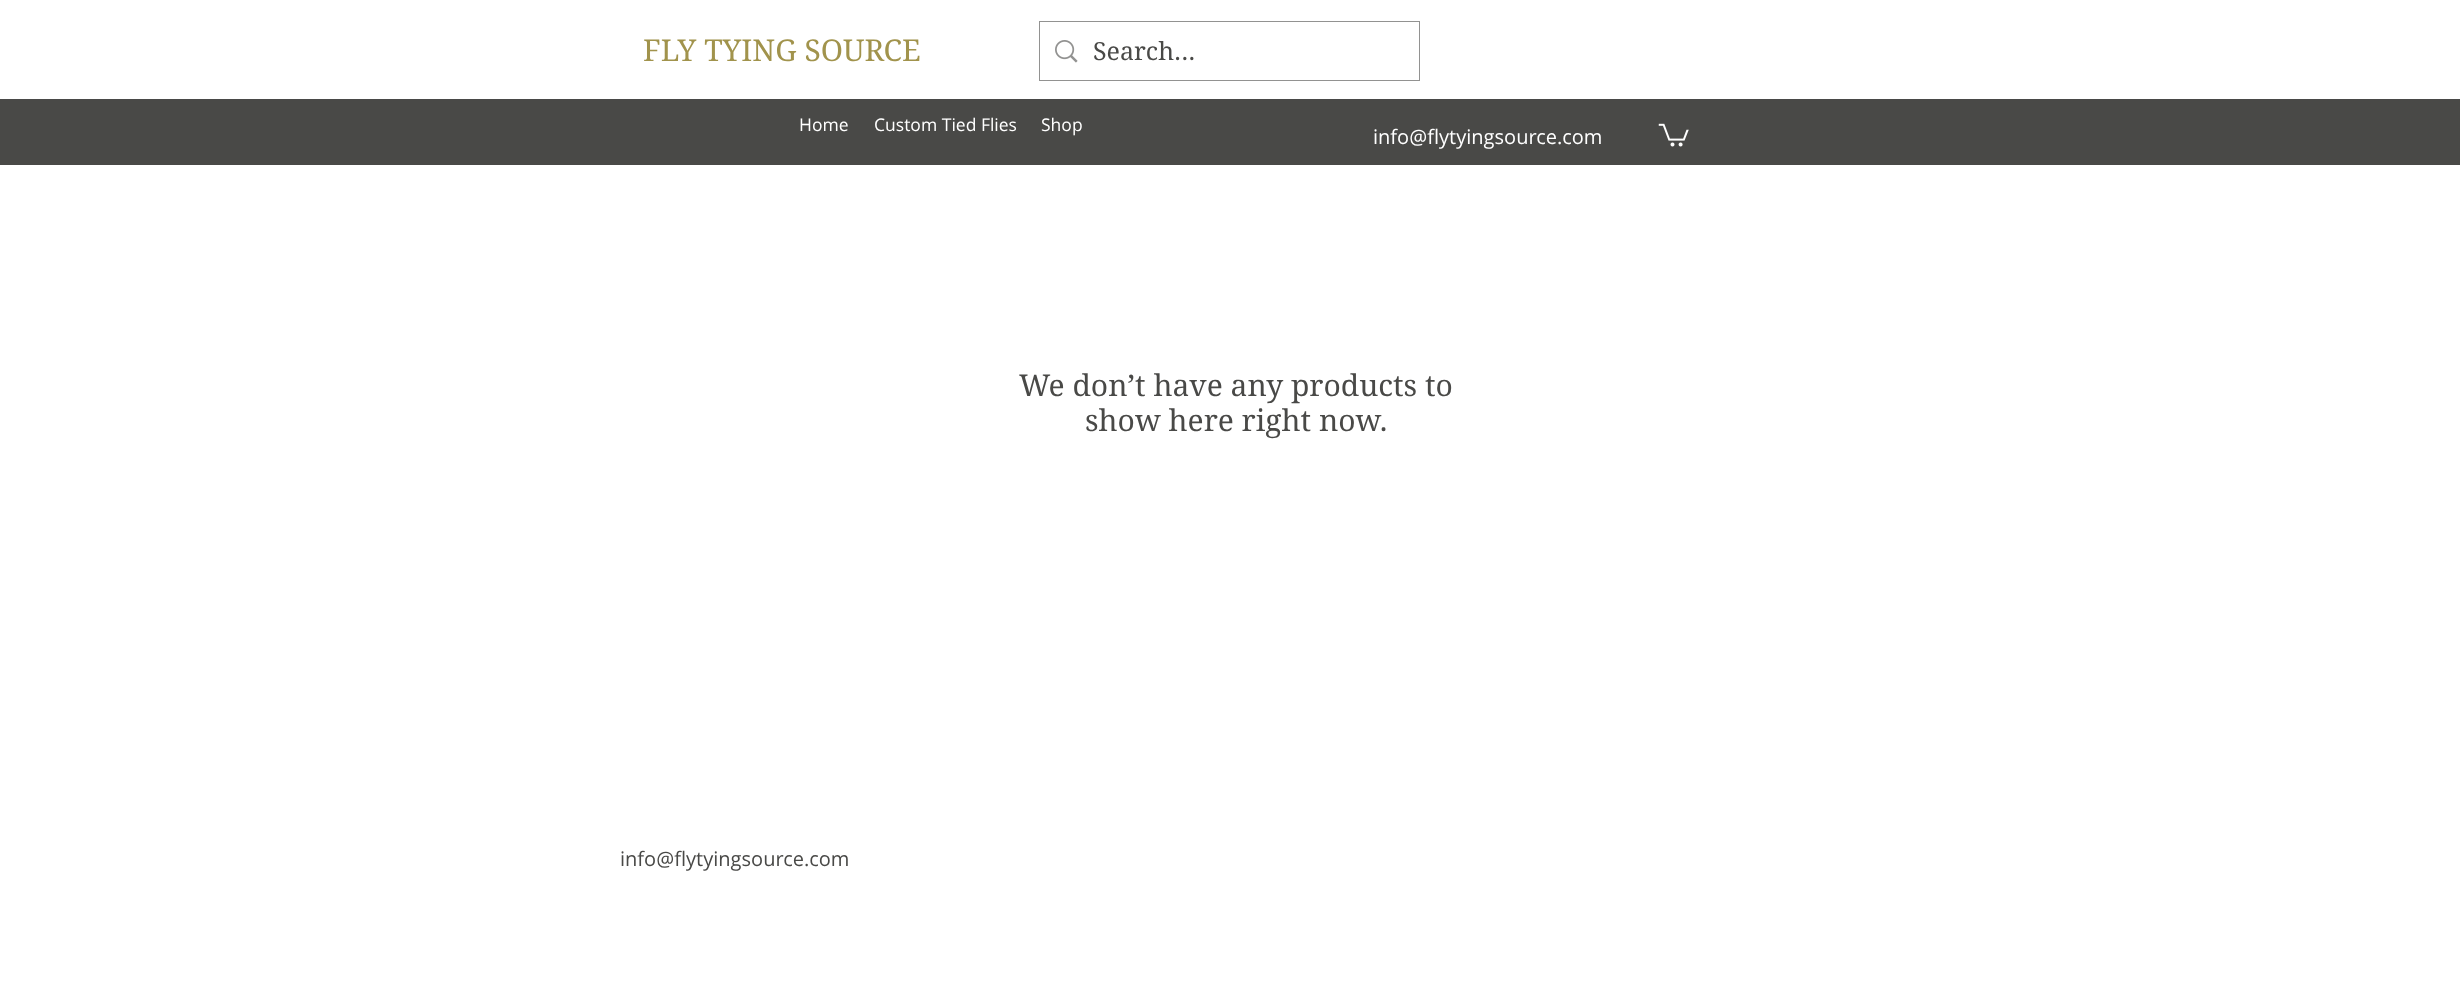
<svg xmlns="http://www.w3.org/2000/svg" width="2460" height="991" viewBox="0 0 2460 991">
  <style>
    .t1 { font: 30px 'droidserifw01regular'; fill: #a1934c; }
    .t2 { font: 25px 'droidserifw01regular'; fill: #494947; }
    .t3 { font: 17.5px Open Sans; fill: #fff; }
    .t4 { font: 20px Open Sans; fill: #fff; }
    .t5 { font: 30px 'droidserifw01regular'; fill: #494947; }
    .t6 { font: 20px Open Sans; fill: #494947; }
  </style>
  <rect width="100%" height="100%" fill="#fff"/>
  <text x="643" y="61" class="t1">FLY TYING SOURCE</text>
  <rect x="1039.5" y="21.5" width="380" height="59" fill="none" stroke="#929291"/>
  <image x="1055" y="40" width="23" height="23" href="images/1.png"/>
  <text x="1093" y="60" class="t2">Search...</text>
  <rect x="0" y="99" width="2460" height="66" fill="#494947"/>
  <text x="799" y="131" class="t3">Home</text>
  <text x="874" y="131" class="t3">Custom Tied Flies</text>
  <text x="1041" y="131" class="t3">Shop</text>
  <text x="1373" y="144" class="t4">info@flytyingsource.com</text>
  <image x="1658" y="123" width="31" height="24" href="images/2.png"/>
  <text x="1019" y="396" class="t5">We don’t have any products to</text>
  <text x="1085" y="431" class="t5">show here right now.</text>
  <text x="620" y="866" class="t6">info@flytyingsource.com</text>
</svg>
